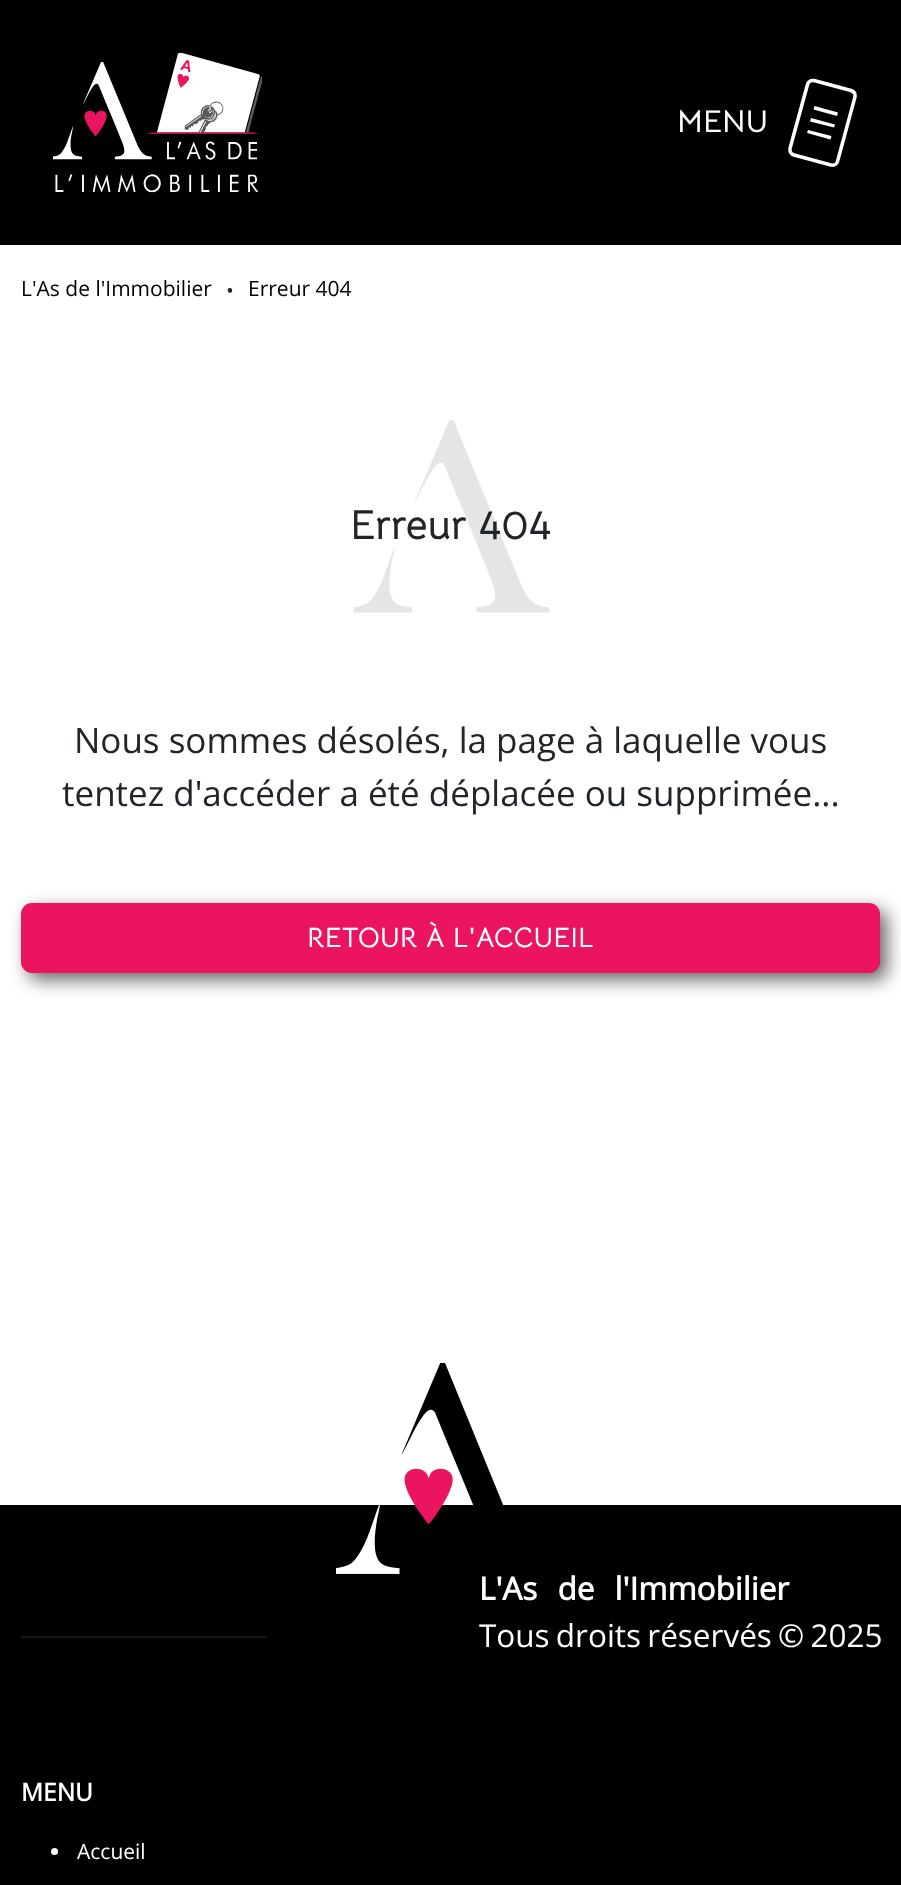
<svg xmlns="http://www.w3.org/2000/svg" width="901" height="1885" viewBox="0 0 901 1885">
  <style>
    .t1 { font: bold 31.5px Bellota Text; fill: #fff; }
    .t2 { font: 21px Open Sans; fill: #000; }
    .t3 { font: 21px Open Sans; fill: #212529; }
    .t4 { font: bold 42px Bellota Text; fill: #212529; }
    .t5 { font: 35px Open Sans; fill: #212529; }
    .t6 { font: bold 28px Bellota Text; fill: #fff; }
    .t7 { font: bold 31.5px Open Sans; fill: #fff; }
    .t8 { font: 31.5px Open Sans; fill: #fff; }
    .t9 { font: bold 24.5px Open Sans; fill: #fff; }
    .t10 { font: 21px Open Sans; fill: #fff; }
  </style>
  <rect width="100%" height="100%" fill="#fff"/>
  <rect x="0" y="0" width="901" height="245" fill="#000"/>
  <image x="53" y="53" width="210" height="140" href="images/1.png"/>
  <text x="677" y="132" class="t1">MENU</text>
  <path d="M814 80.5L851 90.5C854 91.5 855.5 94 855 97L837.5 161.5C837 164 834 165.5 831 165L794 155C791 154.5 789.5 151.5 790 148.5L807.5 84.5C808 81.5 811 80 814 80.5Z" fill="none" stroke="#fff" stroke-width="3.5"/>
  <path d="M814.5 106L838 112.5L837 116L813.5 109.5ZM811 118L835 124.5L834 127.5L810 121.5ZM808 130L831.5 136L830.5 139.5L807 133Z" fill="#fff"/>
  <text x="21" y="296" class="t2">L'As de l'Immobilier</text>
  <text x="226" y="298" class="t3">•</text>
  <text x="248" y="296" class="t2">Erreur 404</text>
  <image x="354" y="420" width="195" height="193" href="images/2.png"/>
  <text x="350" y="539" class="t4">Erreur 404</text>
  <text x="74" y="753" class="t5">Nous sommes désolés, la page à laquelle vous</text>
  <text x="62" y="806" class="t5">tentez d'accéder a été déplacée ou supprimée...</text>
  <rect x="28" y="910" width="859" height="70" rx="11" fill="#00000099" filter="blur(9px)"/>
  <rect x="21" y="903" width="859" height="70" rx="11" fill="#eb1461"/>
  <text x="307" y="947" class="t6">RETOUR À L'ACCUEIL</text>
  <rect x="0" y="1505" width="901" height="380" fill="#000"/>
  <rect x="21" y="1636" width="245" height="2" fill="#161616"/>
  <image x="336" y="1363" width="168" height="211" href="images/3.png"/>
  <text x="479" y="1600" word-spacing="12" class="t7">L'As de l'Immobilier</text>
  <text x="479" y="1647" word-spacing="-2" class="t8">Tous droits réservés © 2025</text>
  <text x="21" y="1801" class="t9">MENU</text>
  <circle cx="54.5" cy="1851.5" r="3.5" fill="#fff"/>
  <text x="77" y="1859" class="t10">Accueil</text>
</svg>
